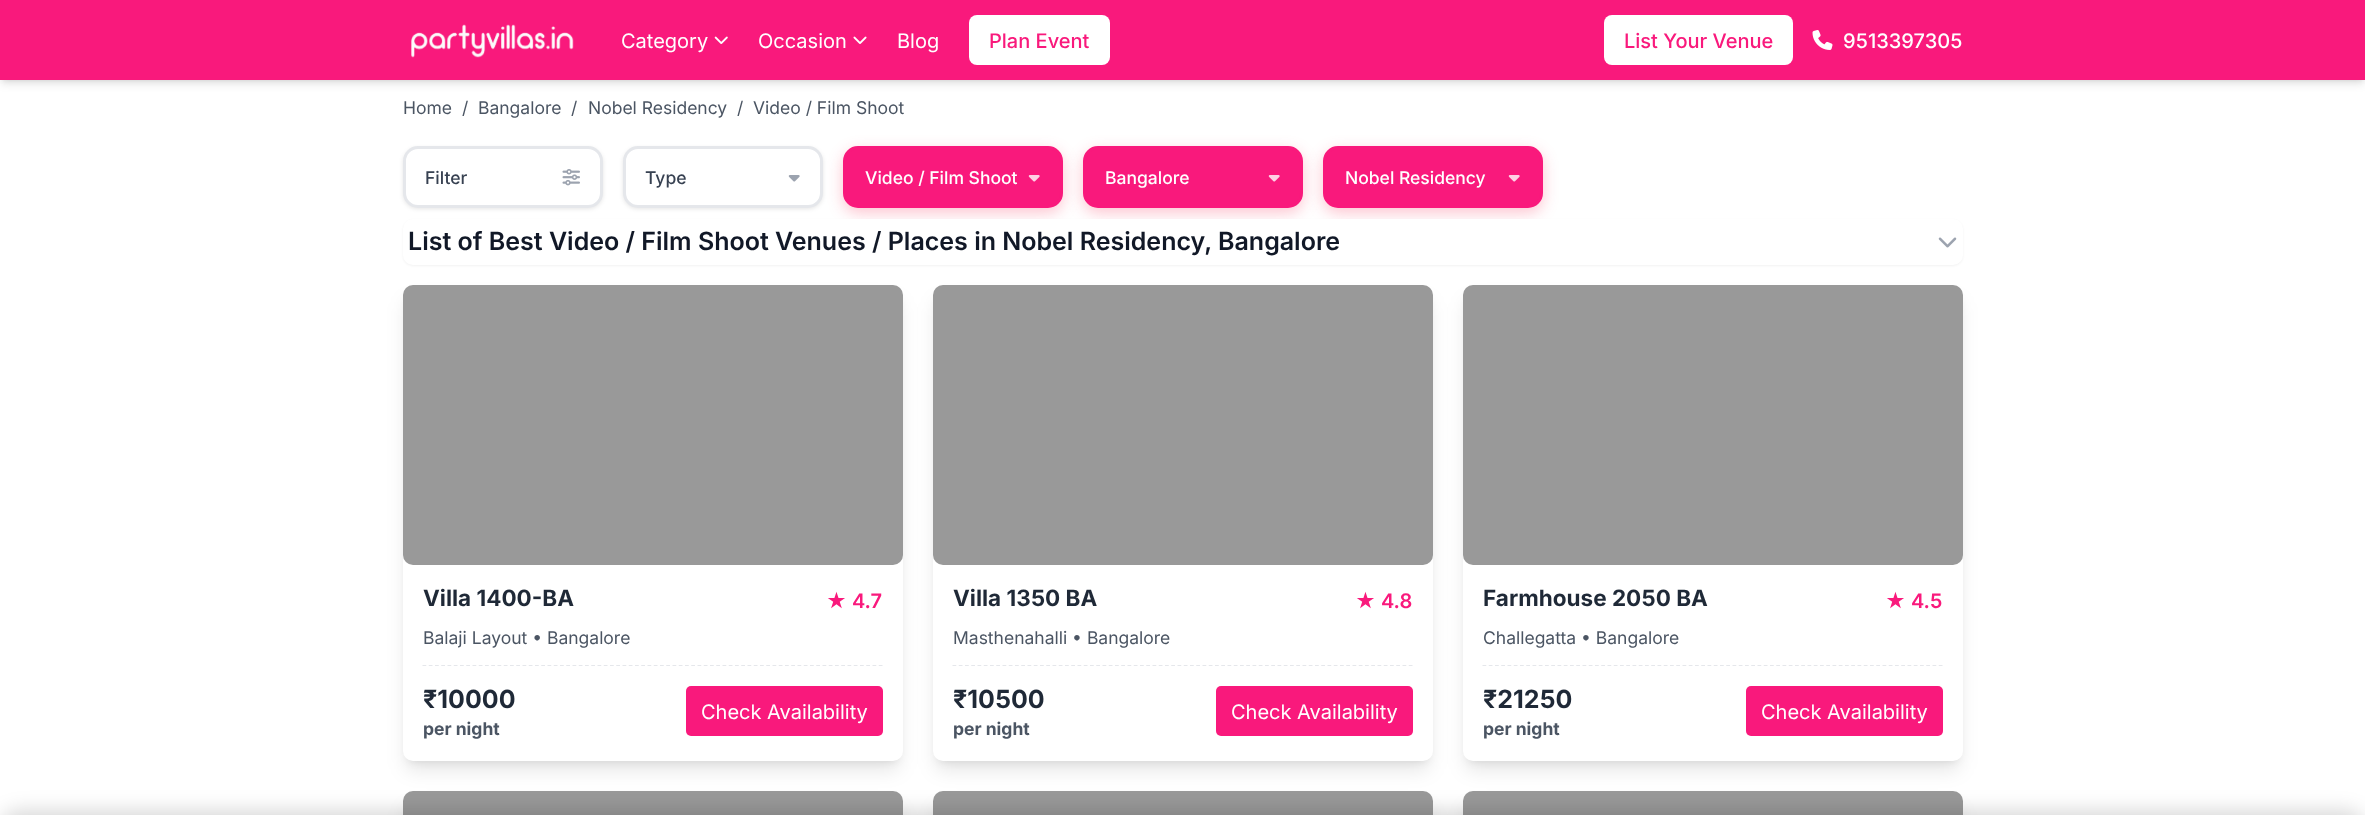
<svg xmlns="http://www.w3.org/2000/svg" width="2365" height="815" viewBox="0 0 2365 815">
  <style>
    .t1 { font: 20px Inter; fill: #fff; }
    .t2 { font: 500 20px Inter; fill: #f9197c; }
    .t3 { font: 500 20px Inter; fill: #fff; }
    .t4 { font: 17.5px Inter; fill: #4b5563; }
    .t5 { font: 500 17.5px Inter; fill: #374151; }
    .t6 { font: 500 17.5px Inter; fill: #fff; }
    .t7 { font: 600 25px Inter; fill: #111827; }
    .t8 { font: bold 22.5px Inter; fill: #1f2937; }
    .t9 { font: 600 20px Inter; fill: #f9197c; }
    .t10 { font: bold 25px Inter; fill: #1f2937; }
    .t11 { font: bold 17.5px Inter; fill: #4b5563; }
  </style>
  <defs>
    <clipPath id="clip1"><rect x="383" y="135" width="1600" height="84"/></clipPath>
  </defs>
  <rect width="100%" height="100%" fill="#fff"/>
  <rect x="3" y="5" width="2360" height="75" fill="#0000001a" filter="blur(2.5px)"/>
  <rect x="1" y="6" width="2363" height="78" fill="#0000001a" filter="blur(4px)"/>
  <rect x="0" y="0" width="2365" height="80" fill="#f9197c"/>
  <image x="411" y="24" width="163" height="34" href="images/1.png"/>
  <text x="621" y="48" class="t1">Category</text>
  <image x="714" y="36" width="14" height="8" href="images/2.png"/>
  <text x="758" y="48" class="t1">Occasion</text>
  <image x="853" y="36" width="14" height="8" href="images/3.png"/>
  <text x="897" y="48" class="t1">Blog</text>
  <rect x="969" y="15" width="141" height="50" rx="8" fill="#fff"/>
  <text x="989" y="48" class="t2">Plan Event</text>
  <rect x="1604" y="15" width="189" height="50" rx="8" fill="#fff"/>
  <text x="1624" y="48" class="t2">List Your Venue</text>
  <image x="1812" y="30" width="21" height="20" href="images/4.png"/>
  <text x="1843" y="48" class="t3">9513397305</text>
  <text x="403" y="114" class="t4">Home</text>
  <text x="462" y="114" class="t4">/</text>
  <text x="478" y="114" class="t4">Bangalore</text>
  <text x="571" y="114" class="t4">/</text>
  <text x="588" y="114" class="t4">Nobel Residency</text>
  <text x="737" y="114" class="t4">/</text>
  <text x="753" y="114" class="t4">Video / Film Shoot</text>
  <rect x="403" y="148" width="200" height="61" rx="15" fill="#0000001a" filter="blur(2px)"/>
  <rect x="404.5" y="147.5" width="197" height="59" rx="13.5" fill="#fff" stroke="#e5e7eb" stroke-width="3"/>
  <text x="425" y="184" class="t5">Filter</text>
  <image x="562" y="169" width="18" height="17" href="images/5.png"/>
  <rect x="623" y="148" width="200" height="61" rx="15" fill="#0000001a" filter="blur(2px)"/>
  <rect x="624.5" y="147.5" width="197" height="59" rx="13.5" fill="#fff" stroke="#e5e7eb" stroke-width="3"/>
  <text x="645" y="184" class="t5">Type</text>
  <image x="788" y="175" width="12" height="7" href="images/6.png"/>
  <rect x="403" y="220" width="1560" height="46" rx="10" fill="#0000000d" filter="blur(1px)"/>
  <rect x="403" y="219" width="1560" height="46" rx="10" fill="#fff"/>
  <g clip-path="url(#clip1)">
    <rect x="843" y="151" width="220" height="62" rx="15" fill="#f9194240" filter="blur(7.5px)"/>
  </g>
  <rect x="844.5" y="147.5" width="217" height="59" rx="13.5" fill="#f9197c" stroke="#f9197c" stroke-width="3"/>
  <text x="865" y="184" class="t6">Video / Film Shoot</text>
  <image x="1028" y="175" width="12" height="7" href="images/7.png"/>
  <g clip-path="url(#clip1)">
    <rect x="1083" y="151" width="220" height="62" rx="15" fill="#f9194240" filter="blur(7.5px)"/>
  </g>
  <rect x="1084.5" y="147.5" width="217" height="59" rx="13.5" fill="#f9197c" stroke="#f9197c" stroke-width="3"/>
  <text x="1105" y="184" class="t6">Bangalore</text>
  <image x="1268" y="175" width="12" height="7" href="images/7.png"/>
  <g clip-path="url(#clip1)">
    <rect x="1323" y="151" width="220" height="62" rx="15" fill="#f9194240" filter="blur(7.5px)"/>
  </g>
  <rect x="1324.5" y="147.5" width="217" height="59" rx="13.5" fill="#f9197c" stroke="#f9197c" stroke-width="3"/>
  <text x="1345" y="184" class="t6">Nobel Residency</text>
  <image x="1508" y="175" width="12" height="7" href="images/7.png"/>
  <text x="408" y="250" class="t7">List of Best Video / Film Shoot Venues / Places in Nobel Residency, Bangalore</text>
  <image x="1938" y="237" width="19" height="11" href="images/8.png"/>
  <rect x="408" y="295" width="490" height="466" rx="5" fill="#0000001a" filter="blur(4px)"/>
  <rect x="406" y="301" width="493" height="469" rx="6" fill="#0000001a" filter="blur(9.5px)"/>
  <rect x="403" y="285" width="500" height="476" rx="10" fill="#fff"/>
  <rect x="403" y="285" width="500" height="280" rx="10" fill="#999"/>
  <text x="423" y="606" class="t8">Villa 1400-BA</text>
  <text x="826" y="608" class="t9">★ 4.7</text>
  <text x="423" y="644" class="t4">Balaji Layout • Bangalore</text>
  <path d="M422.5 665.5H882.5" fill="none" stroke="#e5e7eb" stroke-width="1.2" stroke-dasharray="3.75 2.5"/>
  <text x="423" y="708" class="t10">₹10000</text>
  <text x="423" y="735" class="t11">per night</text>
  <rect x="686" y="686" width="197" height="50" rx="5" fill="#f9197c"/>
  <text x="701" y="719" class="t1">Check Availability</text>
  <rect x="938" y="295" width="490" height="466" rx="5" fill="#0000001a" filter="blur(4px)"/>
  <rect x="936" y="301" width="493" height="469" rx="6" fill="#0000001a" filter="blur(9.5px)"/>
  <rect x="933" y="285" width="500" height="476" rx="10" fill="#fff"/>
  <rect x="933" y="285" width="500" height="280" rx="10" fill="#999"/>
  <text x="953" y="606" class="t8">Villa 1350 BA</text>
  <text x="1355" y="608" class="t9">★ 4.8</text>
  <text x="953" y="644" class="t4">Masthenahalli • Bangalore</text>
  <path d="M952.5 665.5H1412.5" fill="none" stroke="#e5e7eb" stroke-width="1.2" stroke-dasharray="3.75 2.5"/>
  <text x="953" y="708" class="t10">₹10500</text>
  <text x="953" y="735" class="t11">per night</text>
  <rect x="1216" y="686" width="197" height="50" rx="5" fill="#f9197c"/>
  <text x="1231" y="719" class="t1">Check Availability</text>
  <rect x="1468" y="295" width="490" height="466" rx="5" fill="#0000001a" filter="blur(4px)"/>
  <rect x="1466" y="301" width="493" height="469" rx="6" fill="#0000001a" filter="blur(9.5px)"/>
  <rect x="1463" y="285" width="500" height="476" rx="10" fill="#fff"/>
  <rect x="1463" y="285" width="500" height="280" rx="10" fill="#999"/>
  <text x="1483" y="606" class="t8">Farmhouse 2050 BA</text>
  <text x="1885" y="608" class="t9">★ 4.5</text>
  <text x="1483" y="644" class="t4">Challegatta • Bangalore</text>
  <path d="M1482.5 665.5H1942.5" fill="none" stroke="#e5e7eb" stroke-width="1.2" stroke-dasharray="3.75 2.5"/>
  <text x="1483" y="708" class="t10">₹21250</text>
  <text x="1483" y="735" class="t11">per night</text>
  <rect x="1746" y="686" width="197" height="50" rx="5" fill="#f9197c"/>
  <text x="1761" y="719" class="t1">Check Availability</text>
  <rect x="406" y="808" width="493" height="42" rx="6" fill="#0000001a" filter="blur(9.5px)"/>
  <rect x="403" y="791" width="500" height="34" rx="10" fill="#999"/>
  <rect x="936" y="808" width="493" height="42" rx="6" fill="#0000001a" filter="blur(9.5px)"/>
  <rect x="933" y="791" width="500" height="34" rx="10" fill="#999"/>
  <rect x="1466" y="808" width="493" height="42" rx="6" fill="#0000001a" filter="blur(9.5px)"/>
  <rect x="1463" y="791" width="500" height="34" rx="10" fill="#999"/>
  <rect x="0" y="810" width="2365" height="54" rx="20" fill="#00000026" filter="blur(9.5px)"/>
</svg>
